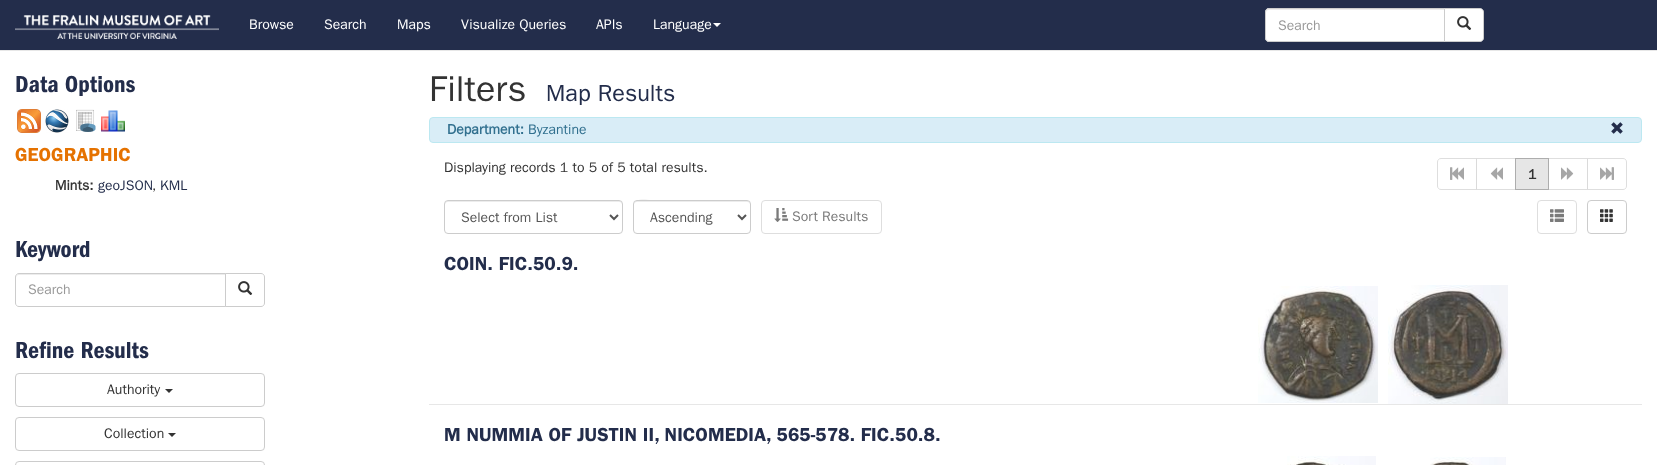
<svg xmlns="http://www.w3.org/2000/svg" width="1657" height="465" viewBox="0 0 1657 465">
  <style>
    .t1 { font: 14px 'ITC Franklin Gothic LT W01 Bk'; fill: #fff; }
    .t2 { font: 14px 'ITC Franklin Gothic LT W01 Bk'; fill: #999; }
    .t3 { font: 600 24px 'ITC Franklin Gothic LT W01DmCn'; fill: #232d4b; }
    .t4 { font: 600 19px 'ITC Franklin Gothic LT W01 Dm'; fill: #e57200; }
    .t5 { font: bold 14px 'ITC Franklin Gothic LT W01 Bk'; fill: #333; }
    .t6 { font: 14px 'ITC Franklin Gothic LT W01 Bk'; fill: #232d4b; }
    .t7 { font: 14px 'ITC Franklin Gothic LT W01 Bk'; fill: #333; }
    .t8 { font: 36px 'ITC Franklin Gothic LT W01 Bk'; fill: #333; }
    .t9 { font: 23.5px 'ITC Franklin Gothic LT W01 Bk'; fill: #232d4b; }
    .t10 { font: bold 14px 'ITC Franklin Gothic LT W01 Bk'; fill: #31708f; }
    .t11 { font: 14px 'ITC Franklin Gothic LT W01 Bk'; fill: #31708f; }
    .t12 { font: 14px 'ITC Franklin Gothic LT W01 Bk'; fill: #555; }
    .t13 { font: 14px 'ITC Franklin Gothic LT W01 Bk'; fill: #7a7a7a; }
    .t14 { font: 600 19px 'ITC Franklin Gothic LT W01 Dm'; fill: #232d4b; }
  </style>
  <rect width="100%" height="100%" fill="#fff"/>
  <rect x="0" y="0" width="1657" height="50" fill="#232d4b"/>
  <rect x="0" y="50" width="1657" height="1" fill="#e7e7e7"/>
  <image x="15" y="15" width="204" height="24" href="images/1.png"/>
  <text x="249" y="29" class="t1">Browse</text>
  <text x="324" y="29" class="t1">Search</text>
  <text x="397" y="29" class="t1">Maps</text>
  <text x="461" y="29" class="t1">Visualize Queries</text>
  <text x="596" y="29" class="t1">APIs</text>
  <text x="653" y="29" class="t1">Language</text>
  <path d="M713 23H721L717 27Z" fill="#fff"/>
  <path d="M1269 8H1445V42H1269C1267 42 1265 40 1265 38V12C1265 10 1267 8 1269 8Z" fill="#fff"/>
  <path d="M1269 10H1444V9H1268C1266 10 1266 11 1266 13C1266 11 1267 10 1269 10Z" fill="#ececec"/>
  <path d="M1269 8.5H1444.5V41.5H1269C1267 41.5 1265.5 40 1265.5 38V12C1265.5 10 1267 8.5 1269 8.5Z" fill="none" stroke="#ccc"/>
  <text x="1278" y="30" class="t2">Search</text>
  <path d="M1444.5 8.5H1480C1482 8.5 1483.5 10 1483.5 12V38C1483.5 40 1482 41.5 1480 41.5H1444.5Z" fill="#fff" stroke="#ccc"/>
  <image x="1457" y="16" width="15" height="14" href="images/2.png"/>
  <text x="15" y="92" class="t3">Data Options</text>
  <image x="17" y="109" width="24" height="24" href="images/3.png"/>
  <image x="45" y="109" width="24" height="24" href="images/4.png"/>
  <image x="76" y="109" width="20" height="23" href="images/5.png"/>
  <image x="101" y="110" width="24" height="22" href="images/6.png"/>
  <text x="15" y="161" class="t4">GEOGRAPHIC</text>
  <text x="55" y="190" class="t5">Mints:</text>
  <text x="98" y="190" class="t6">geoJSON</text>
  <text x="152" y="190" class="t7">,</text>
  <text x="160" y="190" class="t6">KML</text>
  <text x="15" y="257" class="t3">Keyword</text>
  <path d="M19 275H225V274H19C17 274 16 275 16 277V278C16 276 17 275 19 275Z" fill="#ececec"/>
  <path d="M19 273.5H225.5V306.5H19C17 306.5 15.5 305 15.5 303V277C15.5 275 17 273.5 19 273.5Z" fill="none" stroke="#ccc"/>
  <text x="28" y="294" class="t2">Search</text>
  <path d="M225.5 273.5H261C263 273.5 264.5 275 264.5 277V303C264.5 305 263 306.5 261 306.5H225.5Z" fill="#fff" stroke="#ccc"/>
  <image x="238" y="281" width="15" height="14" href="images/2.png"/>
  <text x="15" y="358" class="t3">Refine Results</text>
  <rect x="15.5" y="373.5" width="249" height="33" rx="3.5" fill="none" stroke="#ccc"/>
  <text x="107" y="394" class="t7">Authority</text>
  <path d="M165 389H173L169 393Z" fill="#333"/>
  <rect x="15.5" y="417.5" width="249" height="33" rx="3.5" fill="none" stroke="#ccc"/>
  <text x="104" y="438" class="t7">Collection</text>
  <path d="M168 433H176L172 437Z" fill="#333"/>
  <rect x="15.5" y="461.5" width="249" height="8" rx="3.5" fill="none" stroke="#ccc"/>
  <text x="429" y="101" class="t8">Filters</text>
  <text x="546" y="101" class="t9">Map Results</text>
  <rect x="429.5" y="117.5" width="1212" height="25" rx="3.5" fill="#d9edf7" stroke="#bce8f1"/>
  <text x="447" y="134" class="t10">Department:</text>
  <text x="528" y="134" class="t11">Byzantine</text>
  <image x="1611" y="122" width="12" height="12" href="images/7.png"/>
  <text x="444" y="172" class="t7">Displaying records 1 to 5 of 5 total results.</text>
  <path d="M1441 158.5H1476.5V189.5H1441C1439 189.5 1437.5 188 1437.5 186V162C1437.5 160 1439 158.5 1441 158.5Z" fill="none" stroke="#dedede"/>
  <image x="1450" y="167" width="14" height="13" href="images/8.png"/>
  <rect x="1476" y="158" width="1" height="32" fill="#ffffffa6"/>
  <rect x="1476.5" y="158.5" width="39" height="31" fill="none" stroke="#cccccca6"/>
  <image x="1490" y="167" width="13" height="13" href="images/9.png"/>
  <rect x="1548.5" y="158.5" width="39" height="31" fill="none" stroke="#dedede"/>
  <rect x="1515.5" y="158.5" width="33" height="31" fill="#e6e6e6" stroke="#adadad"/>
  <text x="1528" y="179" class="t5">1</text>
  <image x="1561" y="167" width="13" height="13" href="images/10.png"/>
  <path d="M1587 158H1623C1625 158 1627 160 1627 162V186C1627 188 1625 190 1623 190H1587Z" fill="#ffffffa6"/>
  <path d="M1587.5 158.5H1623C1625 158.5 1626.5 160 1626.5 162V186C1626.5 188 1625 189.5 1623 189.5H1587.5Z" fill="none" stroke="#cccccca6"/>
  <image x="1600" y="167" width="14" height="13" href="images/11.png"/>
  <path d="M448 202H619C621 202 622 203 622 205V204C622 202 621 201 619 201H448C446 201 445 202 445 204V205C445 203 446 202 448 202Z" fill="#ececec"/>
  <rect x="444.5" y="200.5" width="178" height="33" rx="3.5" fill="none" stroke="#ccc"/>
  <path d="M610 215L614 219L618 215" fill="none" stroke="#555" stroke-width="2"/>
  <text x="461" y="222" class="t12">Select from List</text>
  <path d="M637 202H747C749 202 750 203 750 205C750 203 749 201 747 201H655C654 201 634 196 634 205C634 203 635 202 637 202Z" fill="#ececec"/>
  <rect x="633.5" y="200.5" width="117" height="33" rx="3.5" fill="none" stroke="#ccc"/>
  <path d="M738 215L742 219L746 215" fill="none" stroke="#555" stroke-width="2"/>
  <text x="650" y="222" class="t12">Ascending</text>
  <rect x="761.5" y="200.5" width="120" height="33" rx="3.5" fill="none" stroke="#dedede"/>
  <image x="774" y="208" width="15" height="14" href="images/12.png"/>
  <text x="792" y="221" class="t13">Sort Results</text>
  <rect x="1537.5" y="200.5" width="39" height="33" rx="3.5" fill="none" stroke="#dedede"/>
  <image x="1550" y="209" width="14" height="13" href="images/13.png"/>
  <rect x="1587.5" y="200.5" width="39" height="33" rx="3.5" fill="none" stroke="#ccc"/>
  <image x="1600" y="209" width="13" height="13" href="images/14.png"/>
  <rect x="429" y="404" width="1213" height="1" fill="#e7e7e7"/>
  <text x="444" y="270" class="t14">COIN. FIC.50.9.</text>
  <image x="1258" y="286" width="120" height="117" href="images/15.png"/>
  <image x="1388" y="285" width="120" height="119" href="images/16.png"/>
  <text x="444" y="441" class="t14">M NUMMIA OF JUSTIN II, NICOMEDIA, 565-578. FIC.50.8.</text>
  <image x="1287" y="456" width="89" height="9" href="images/17.png"/>
  <image x="1430" y="457" width="76" height="8" href="images/18.png"/>
</svg>
